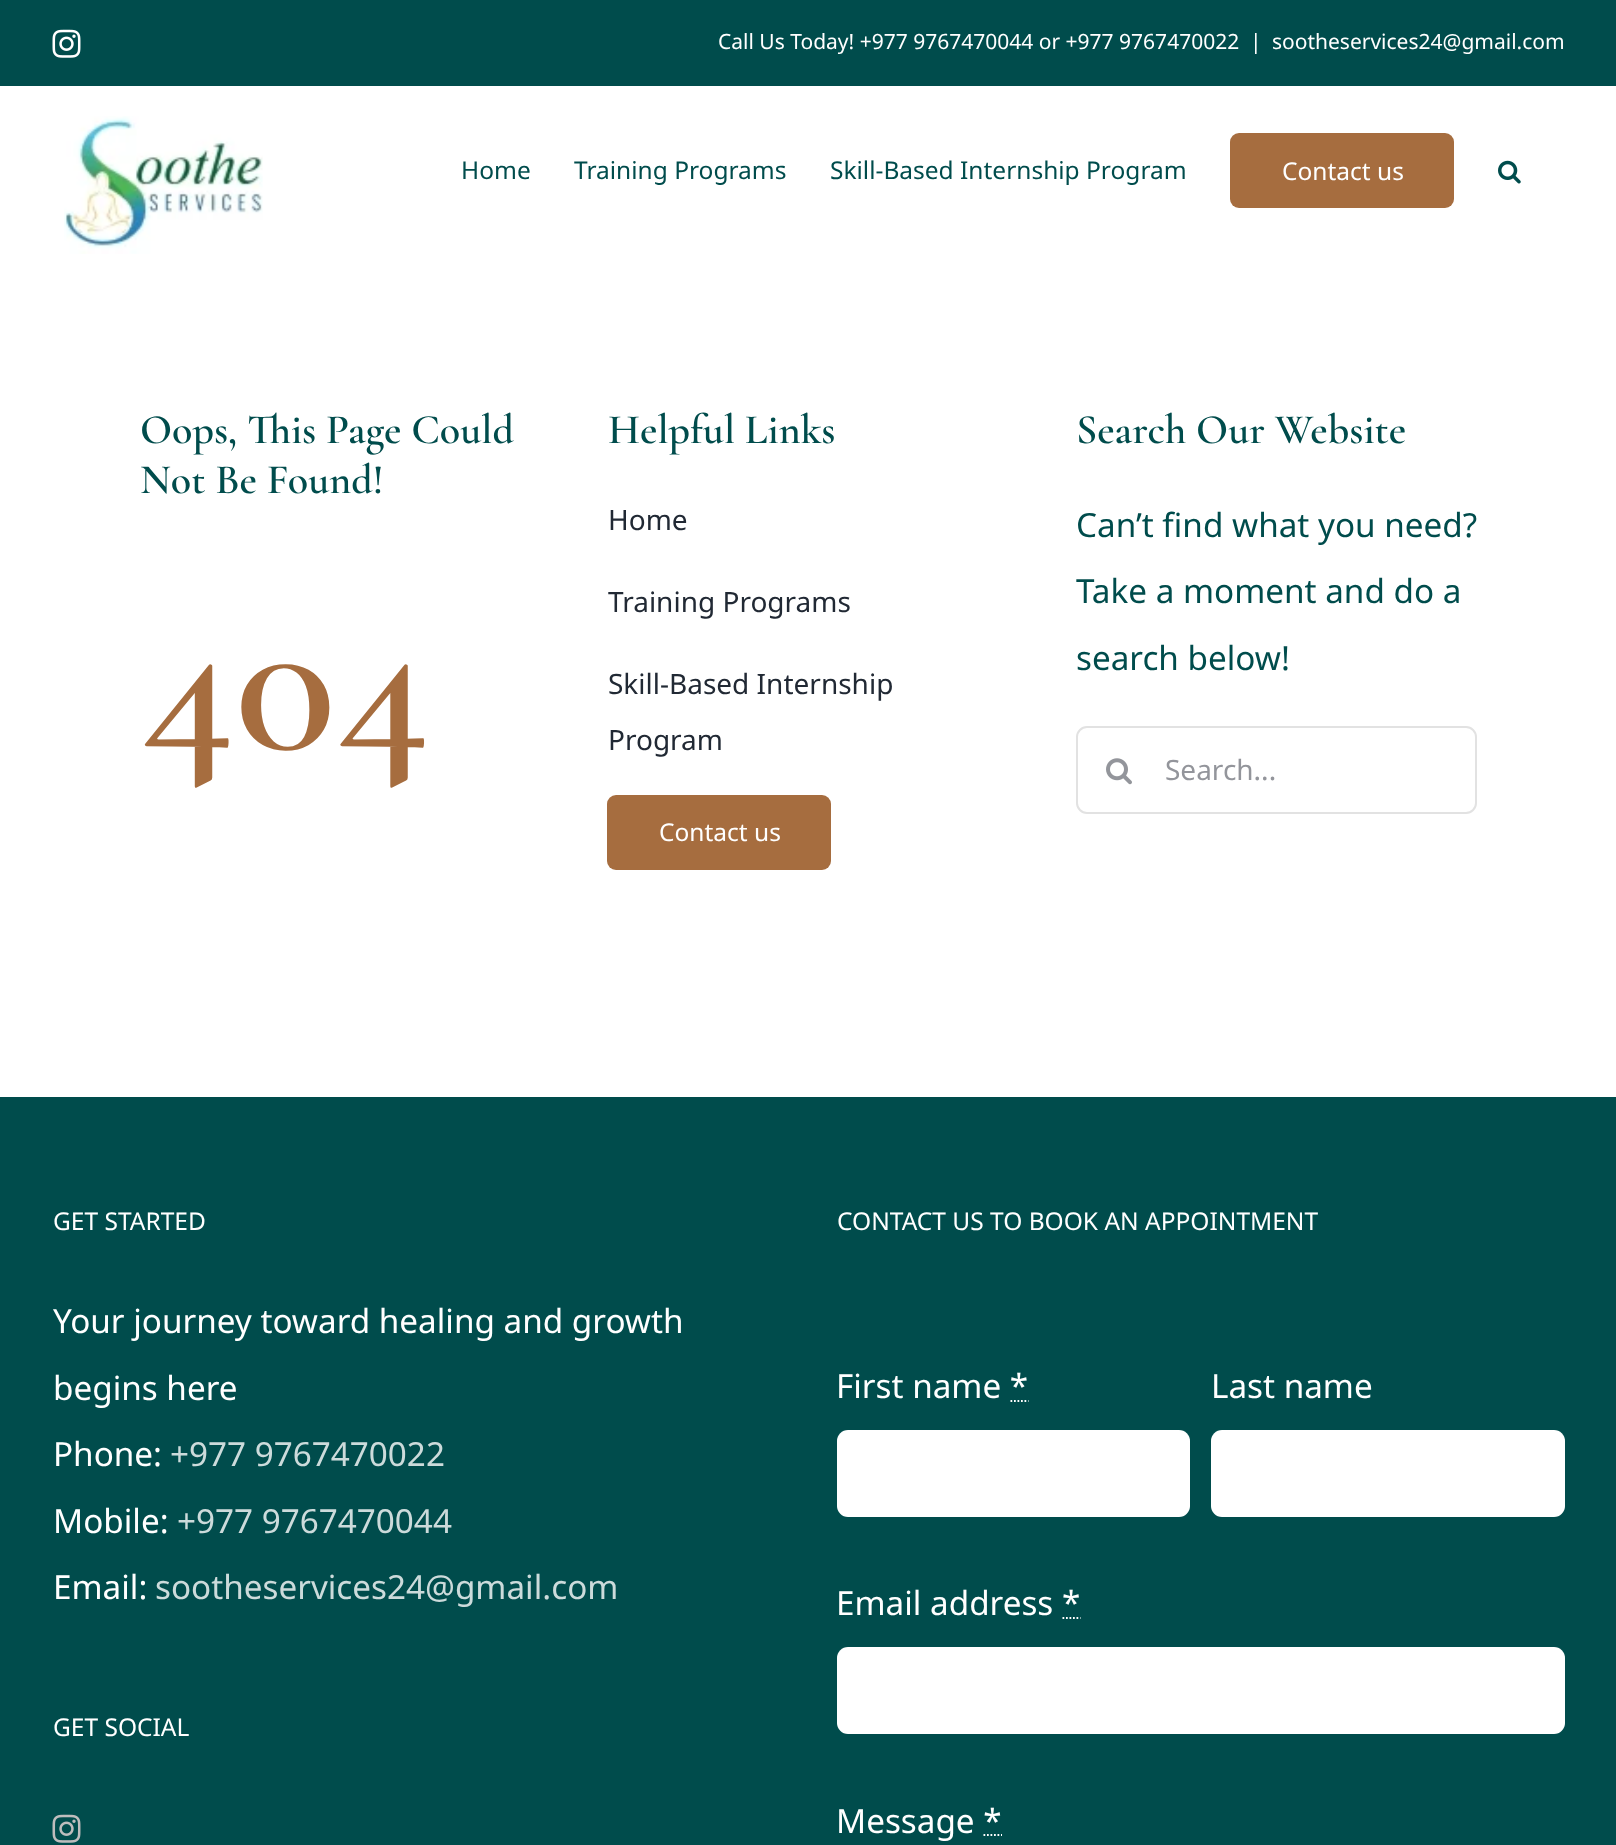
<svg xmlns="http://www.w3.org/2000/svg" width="1616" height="1845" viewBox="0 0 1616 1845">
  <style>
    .t1 { font: 21px Noto Sans; fill: #fff; }
    .t2 { font: 24.5px Noto Sans; fill: #004c4c; }
    .t3 { font: 24.5px Noto Sans; fill: #fff; }
    .t4 { font: 600 42px Cormorant Garamond; fill: #004c4c; }
    .t5 { font: 600 210px Cormorant Garamond; fill: #a66d3f; }
    .t6 { font: 28px Noto Sans; fill: #212934; }
    .t7 { font: 33.25px Noto Sans; fill: #004c4c; }
    .t8 { font: 28px Noto Sans; fill: #93959b; }
    .t9 { font: 33.25px Noto Sans; fill: #fff; }
    .t10 { font: 33.25px Noto Sans; fill: #ccdbdb; }
  </style>
  <rect width="100%" height="100%" fill="#fff"/>
  <rect x="0" y="0" width="1616" height="86" fill="#004c4c"/>
  <image x="52" y="29" width="29" height="29" href="images/1.png"/>
  <text x="718" y="49" class="t1">Call Us Today! +977 9767470044 or +977 9767470022</text>
  <text x="1250" y="49" class="t1">|</text>
  <text x="1272" y="49" class="t1">sootheservices24@gmail.com</text>
  <image x="64" y="116" width="199" height="138" href="images/2.png"/>
  <text x="461" y="179" class="t2">Home</text>
  <text x="574" y="179" class="t2">Training Programs</text>
  <text x="830" y="179" class="t2">Skill-Based Internship Program</text>
  <rect x="1230" y="133" width="224" height="75" rx="9" fill="#a66d3f"/>
  <text x="1282" y="180" class="t3">Contact us</text>
  <image x="1498" y="160" width="23" height="24" href="images/3.png"/>
  <text x="140" y="443" class="t4">Oops, This Page Could</text>
  <text x="140" y="493" class="t4">Not Be Found!</text>
  <text x="140" y="748" class="t5">404</text>
  <text x="608" y="443" class="t4">Helpful Links</text>
  <text x="608" y="530" class="t6">Home</text>
  <text x="608" y="612" class="t6">Training Programs</text>
  <text x="608" y="694" class="t6">Skill-Based Internship</text>
  <text x="608" y="750" class="t6">Program</text>
  <rect x="607" y="795" width="224" height="75" rx="9" fill="#a66d3f"/>
  <text x="659" y="841" class="t3">Contact us</text>
  <text x="1076" y="443" class="t4">Search Our Website</text>
  <text x="1076" y="537" class="t7">Can’t find what you need?</text>
  <text x="1076" y="603" class="t7">Take a moment and do a</text>
  <text x="1076" y="670" class="t7">search below!</text>
  <rect x="1077" y="727" width="399" height="86" rx="10" fill="none" stroke="#e2e2e2" stroke-width="2"/>
  <image x="1106" y="758" width="26" height="27" href="images/4.png"/>
  <text x="1165" y="780" class="t8">Search...</text>
  <rect x="0" y="1097" width="1616" height="748" fill="#004c4c"/>
  <text x="53" y="1230" class="t3">GET STARTED</text>
  <text x="53" y="1333" class="t9">Your journey toward healing and growth</text>
  <text x="53" y="1400" class="t9">begins here</text>
  <text x="53" y="1466" class="t9">Phone:</text>
  <text x="170" y="1466" class="t10">+977 9767470022</text>
  <text x="53" y="1533" class="t9">Mobile:</text>
  <text x="177" y="1533" class="t10">+977 9767470044</text>
  <text x="53" y="1599" class="t9">Email:</text>
  <text x="155" y="1599" class="t10">sootheservices24@gmail.com</text>
  <text x="53" y="1736" class="t3">GET SOCIAL</text>
  <image x="52" y="1814" width="29" height="29" href="images/5.png"/>
  <text x="837" y="1230" class="t3">CONTACT US TO BOOK AN APPOINTMENT</text>
  <text x="836" y="1398" class="t9">First name *</text>
  <path d="M1010.5 1401H1028.5" fill="none" stroke="#fff" stroke-width="1.8" stroke-dasharray="1.75 1.75"/>
  <rect x="837" y="1430" width="353" height="87" rx="11" fill="#fff"/>
  <text x="1211" y="1398" class="t9">Last name</text>
  <rect x="1211" y="1430" width="354" height="87" rx="11" fill="#fff"/>
  <text x="836" y="1615" class="t9">Email address *</text>
  <path d="M1062.5 1618H1080.5" fill="none" stroke="#fff" stroke-width="1.8" stroke-dasharray="1.75 1.75"/>
  <rect x="837" y="1647" width="728" height="87" rx="11" fill="#fff"/>
  <text x="836" y="1833" class="t9">Message *</text>
  <path d="M983.5 1835H1002" fill="none" stroke="#fff" stroke-width="1.8" stroke-dasharray="1.75 1.75"/>
</svg>
